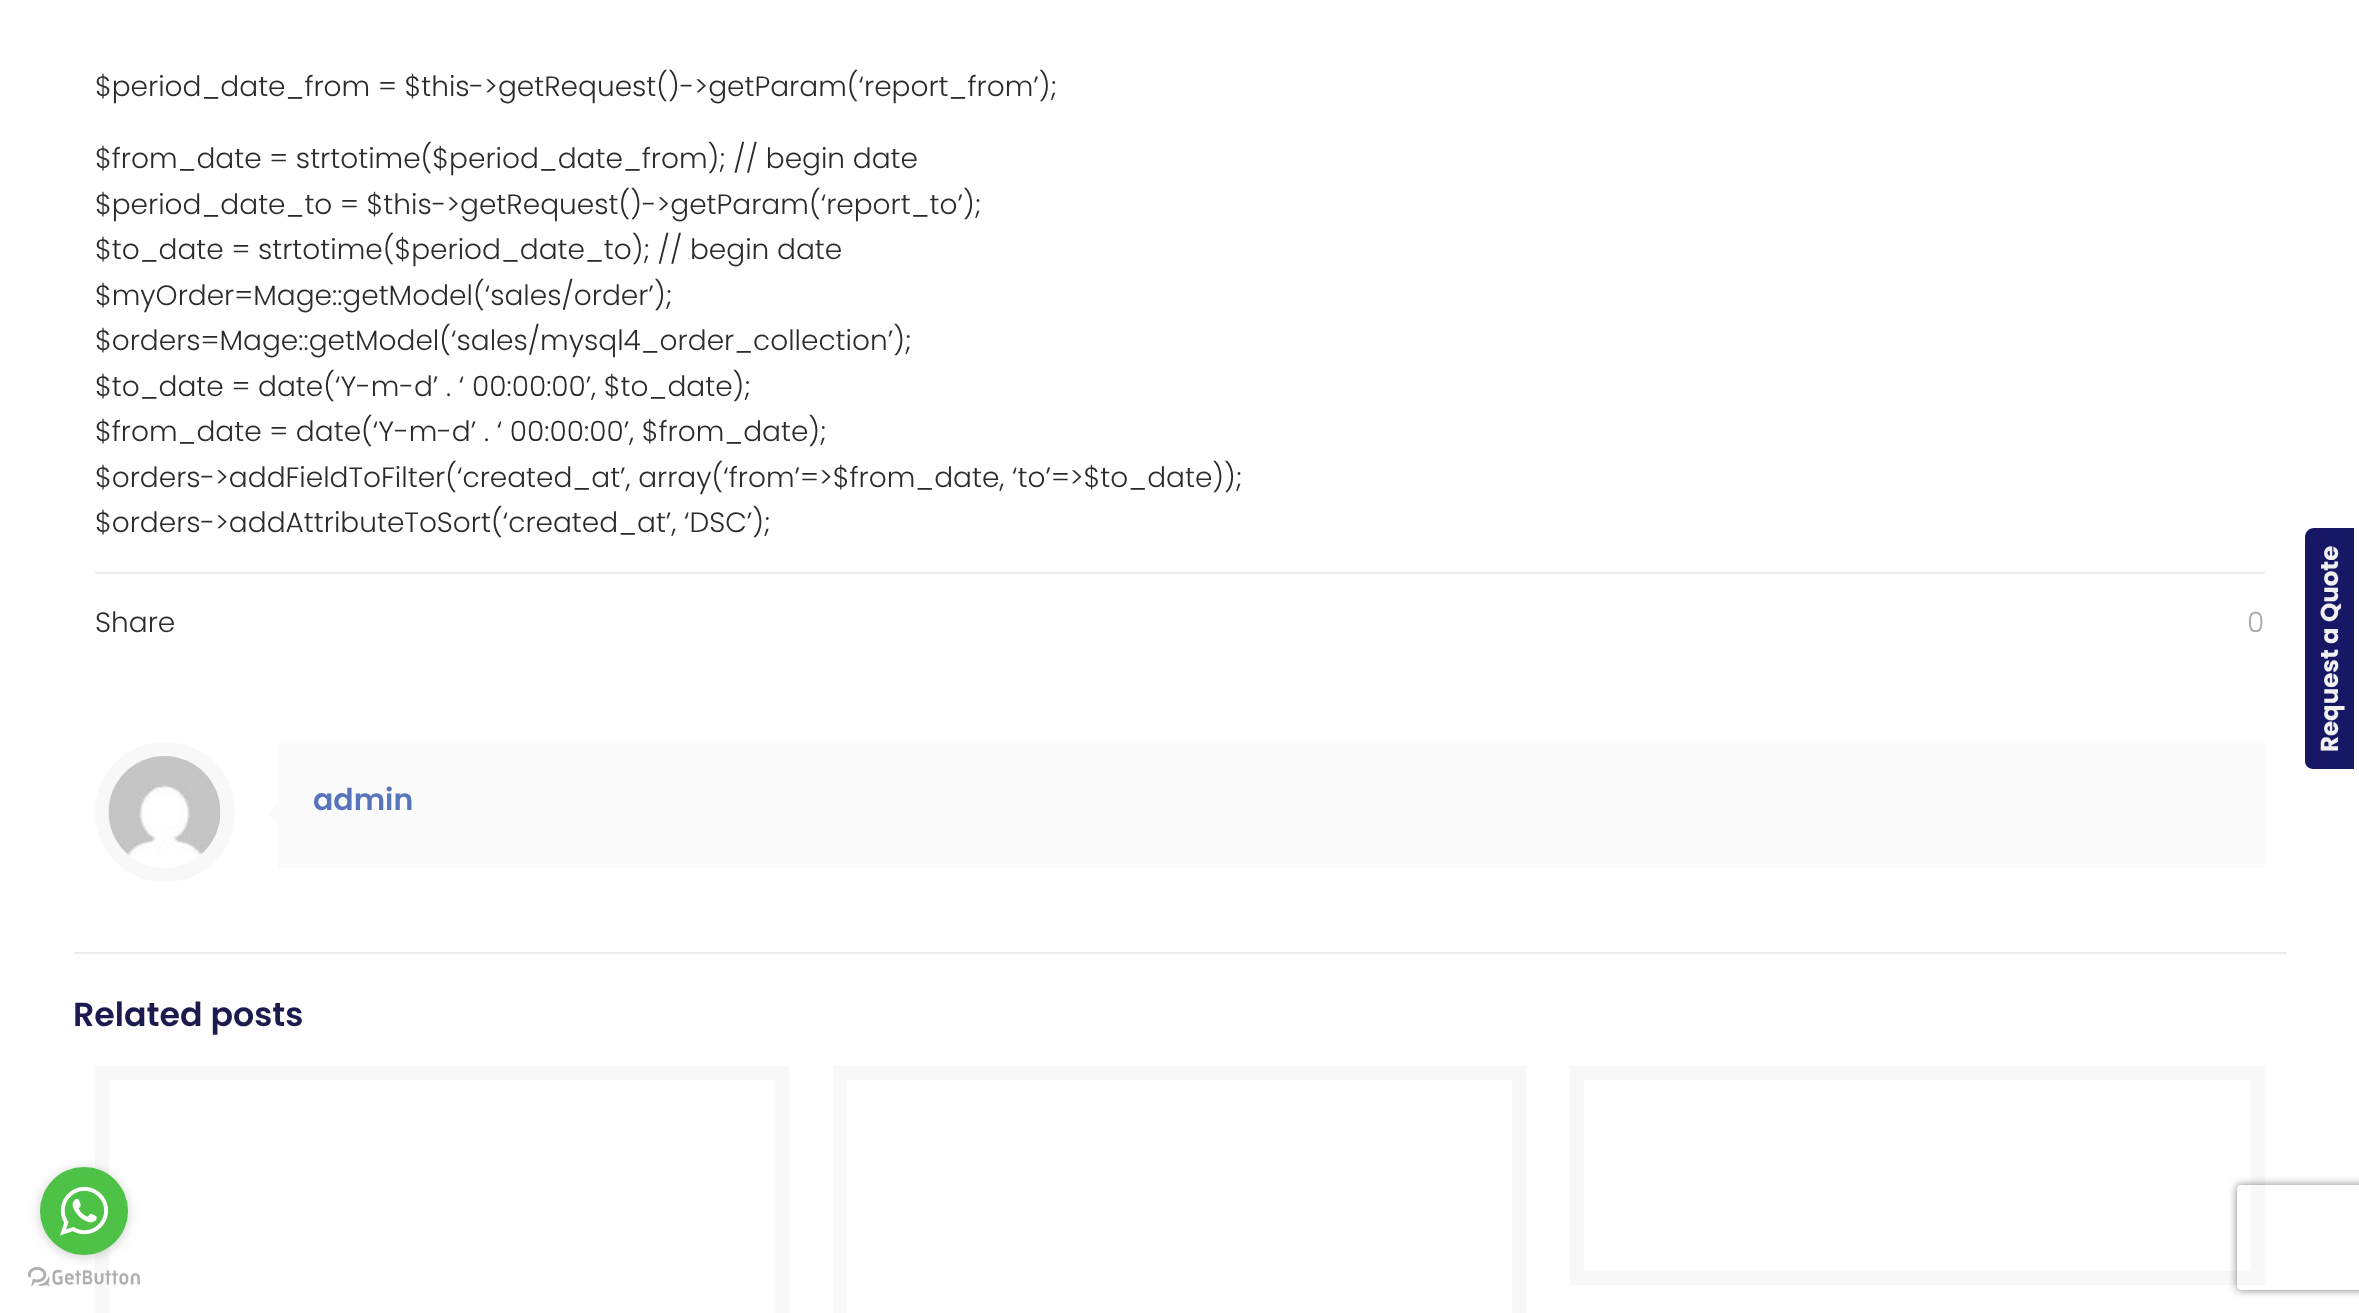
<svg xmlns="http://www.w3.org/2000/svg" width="2359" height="1313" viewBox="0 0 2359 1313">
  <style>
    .t1 { font: 300 28px Poppins; fill: #2b2b2b; }
    .t2 { font: 300 28px Poppins; fill: #a8a8a8; }
    .t3 { font: 600 30px Poppins; fill: #5774bd; }
    .t4 { font: 600 33.25px Poppins; fill: #1b1b4f; }
    .t5 { font: bold 24.5px Poppins; fill: #f1f1f1; }
  </style>
  <defs>
    <clipPath id="clip1"><path d="M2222 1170H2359V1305H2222ZM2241 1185H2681C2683 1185 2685 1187 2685 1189V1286C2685 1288 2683 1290 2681 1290H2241C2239 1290 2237 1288 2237 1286V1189C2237 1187 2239 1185 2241 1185Z" clip-rule="evenodd"/></clipPath>
  </defs>
  <rect width="100%" height="100%" fill="#fff"/>
  <text x="95" y="96" class="t1">$period_date_from = $this-&gt;getRequest()-&gt;getParam(‘report_from’);</text>
  <text x="95" y="168" class="t1">$from_date = strtotime($period_date_from); // begin date</text>
  <text x="95" y="214" class="t1">$period_date_to = $this-&gt;getRequest()-&gt;getParam(‘report_to’);</text>
  <text x="95" y="259" class="t1">$to_date = strtotime($period_date_to); // begin date</text>
  <text x="95" y="305" class="t1">$myOrder=Mage::getModel(‘sales/order’);</text>
  <text x="95" y="350" class="t1">$orders=Mage::getModel(‘sales/mysql4_order_collection’);</text>
  <text x="95" y="396" class="t1">$to_date = date(‘Y-m-d’ . ‘ 00:00:00’, $to_date);</text>
  <text x="95" y="441" class="t1">$from_date = date(‘Y-m-d’ . ‘ 00:00:00’, $from_date);</text>
  <text x="95" y="487" class="t1">$orders-&gt;addFieldToFilter(‘created_at’, array(‘from’=&gt;$from_date, ‘to’=&gt;$to_date));</text>
  <text x="95" y="532" class="t1">$orders-&gt;addAttributeToSort(‘created_at’, ‘DSC’);</text>
  <rect x="95" y="572" width="2170" height="2" fill="#ebebeb"/>
  <text x="95" y="632" class="t1">Share</text>
  <text x="2247" y="632" class="t2">0</text>
  <circle cx="165" cy="812" r="63" fill="none" stroke="#f8f8f8" stroke-width="14"/>
  <image x="108" y="756" width="113" height="99" href="images/1.png"/>
  <rect x="278" y="742" width="1987" height="126" fill="#fbfbfb"/>
  <text x="313" y="810" class="t3">admin</text>
  <path d="M278 803V824L268 814Z" fill="#fafafa"/>
  <rect x="74" y="952" width="2213" height="2" fill="#ebebeb"/>
  <text x="73" y="1026" class="t4">Related posts</text>
  <rect x="102" y="1073" width="680" height="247" fill="none" stroke="#f8f8f8" stroke-width="14"/>
  <rect x="840" y="1073" width="679" height="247" fill="none" stroke="#f8f8f8" stroke-width="14"/>
  <rect x="1577" y="1073" width="681" height="205" fill="none" stroke="#f8f8f8" stroke-width="14"/>
  <path d="M2305 761V537C2305 532 2309 528 2314 528H2354V769H2314C2309 769 2305 766 2305 761Z" fill="#161765"/>
  <text x="2338" y="752" transform="rotate(-90 2338 752)" class="t5">Request a Quote</text>
  <image x="28" y="1267" width="112" height="19" href="images/3.png"/>
  <rect x="40" y="1169" width="88" height="88" rx="44" fill="#88888866" filter="blur(6px)"/>
  <circle cx="84" cy="1211" r="44" fill="#4dc247"/>
  <image x="60" y="1186" width="49" height="50" href="images/2.png"/>
  <g clip-path="url(#clip1)">
    <rect x="2237" y="1185" width="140" height="105" rx="4" fill="#808080" filter="blur(4.5px)"/>
  </g>
</svg>
